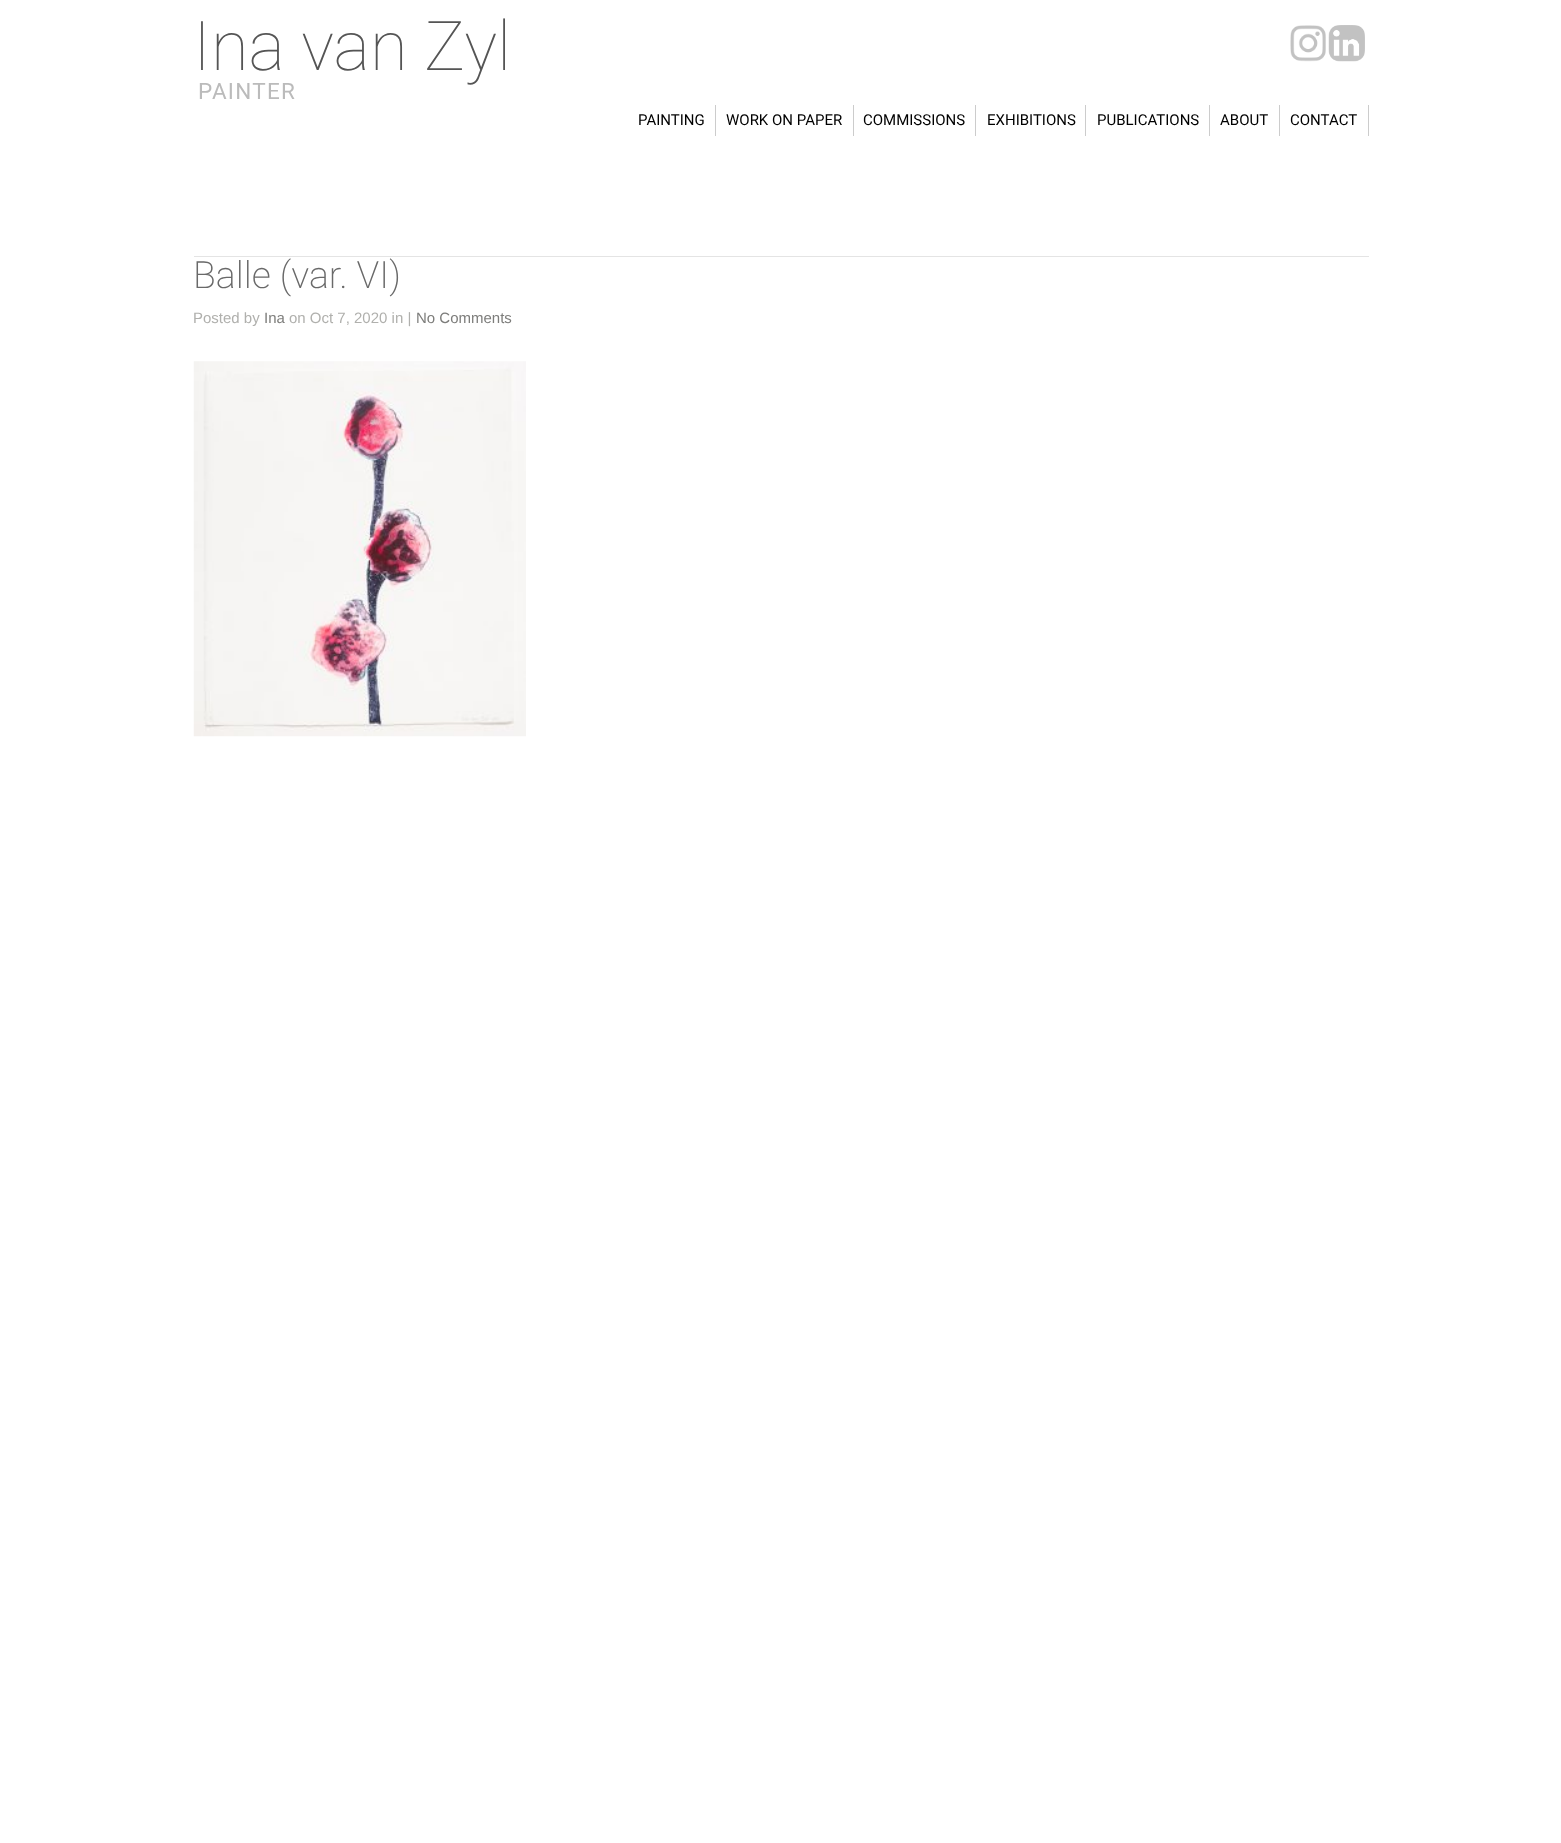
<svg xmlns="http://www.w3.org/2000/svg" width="1561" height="1843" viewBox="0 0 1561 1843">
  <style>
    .t1 { font: 100 68.75px Roboto; fill: #555; }
    .t2 { font: 22.5px Roboto; letter-spacing: 1.25px; fill: #bbb; }
    .t3 { font: 15px Roboto; fill: #000; }
    .t4 { font: 200 37.5px Roboto; fill: #696969; }
    .t5 { font: 15px Liberation Sans; fill: #b0b0ad; }
    .t6 { font: 15px Liberation Sans; fill: #7d7d7b; }
  </style>
  <rect width="100%" height="100%" fill="#fff"/>
  <text x="193" y="70" class="t1">Ina van Zyl</text>
  <text x="198" y="99" class="t2">PAINTER</text>
  <image x="1290" y="25" width="36" height="37" href="images/1.png"/>
  <image x="1328" y="25" width="37" height="37" href="images/2.png"/>
  <rect x="715" y="105" width="1" height="31" fill="#ccc"/>
  <text x="638" y="125" class="t3">PAINTING</text>
  <rect x="853" y="105" width="1" height="31" fill="#ccc"/>
  <text x="726" y="125" class="t3">WORK ON PAPER</text>
  <rect x="975" y="105" width="1" height="31" fill="#ccc"/>
  <text x="863" y="125" class="t3">COMMISSIONS</text>
  <rect x="1085" y="105" width="1" height="31" fill="#ccc"/>
  <text x="987" y="125" class="t3">EXHIBITIONS</text>
  <rect x="1209" y="105" width="1" height="31" fill="#ccc"/>
  <text x="1097" y="125" class="t3">PUBLICATIONS</text>
  <rect x="1279" y="105" width="1" height="31" fill="#ccc"/>
  <text x="1220" y="125" class="t3">ABOUT</text>
  <rect x="1368" y="105" width="1" height="31" fill="#ccc"/>
  <text x="1290" y="125" class="t3">CONTACT</text>
  <rect x="194" y="256" width="1175" height="1" fill="#e4e4e4"/>
  <text x="193" y="288" class="t4">Balle (var. VI)</text>
  <text x="193" y="323" class="t5">Posted by</text>
  <text x="264" y="323" class="t6">Ina</text>
  <text x="289" y="323" class="t5">on Oct 7, 2020 in |</text>
  <text x="416" y="323" class="t6">No Comments</text>
  <image x="193" y="361" width="333" height="376" href="images/3.png"/>
</svg>
